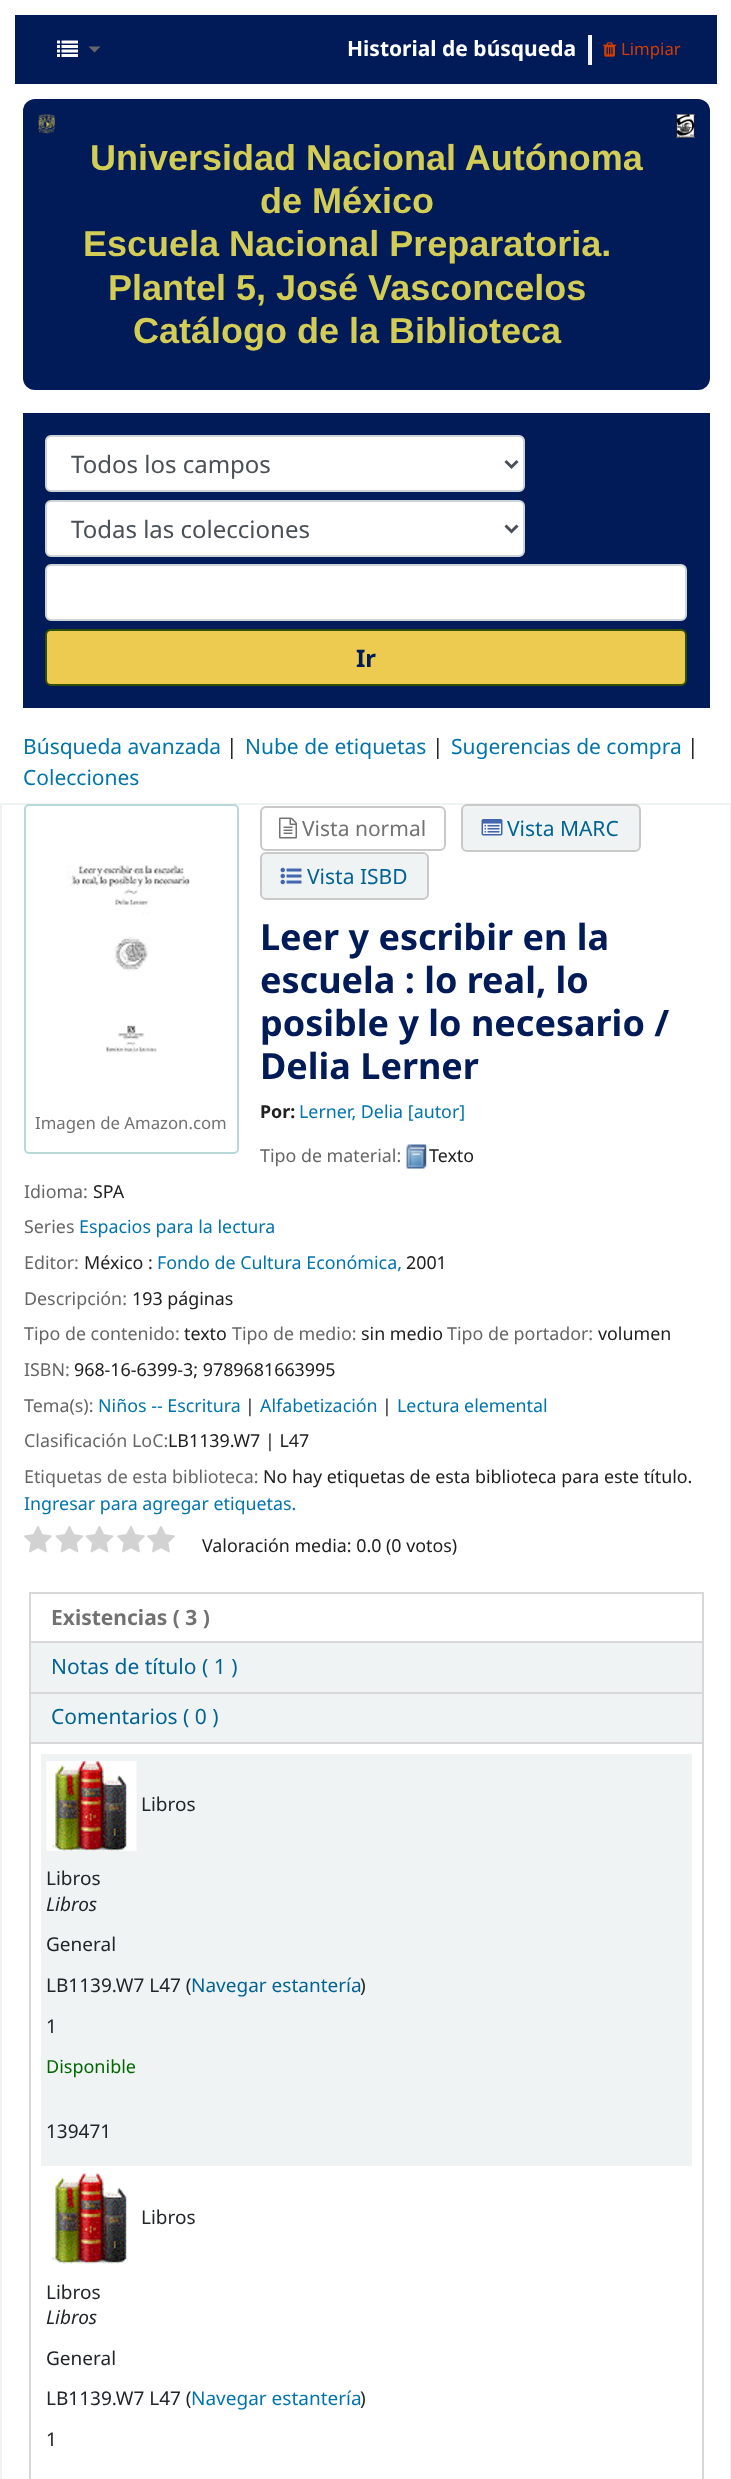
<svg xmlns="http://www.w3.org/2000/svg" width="731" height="2479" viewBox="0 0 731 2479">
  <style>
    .t1 { font: bold 21px Noto Sans; fill: #fff; }
    .t2 { font: 16.75px Noto Sans; fill: #d43c00; }
    .t3 { font: bold 36px Liberation Sans; fill: #d3cc55; }
    .t4 { font: 24px Noto Sans; fill: #495057; }
    .t5 { font: bold 24px Noto Sans; fill: #001b58; }
    .t6 { font: 21px Noto Sans; fill: #0074ad; }
    .t7 { font: 21px Noto Sans; fill: #212529; }
    .t8 { font: 21px Noto Sans; fill: #727272; }
    .t9 { font: 21px Noto Sans; fill: #006394; }
    .t10 { font: bold 36px Noto Sans; fill: #001b58; }
    .t11 { font: bold 17.85px Noto Sans; fill: #202020; }
    .t12 { font: 17.85px Noto Sans; fill: #0074ad; }
    .t13 { font: 17.85px Noto Sans; fill: #666; }
    .t14 { font: 17.85px Noto Sans; fill: #202020; }
    .t15 { font: 16.75px Noto Sans; fill: #727272; }
    .t16 { font: bold 21px Noto Sans; fill: #727272; }
    .t17 { font: 19px Noto Sans; fill: #212529; }
    .t18 { font: italic 19px Noto Sans; fill: #212529; }
    .t19 { font: 19px Noto Sans; fill: #006394; }
    .t20 { font: 18px Noto Sans; fill: #060; }
    .t21 { font: 19px Noto Sans; fill: #0074ad; }
  </style>
  <rect width="100%" height="100%" fill="#fff"/>
  <rect x="15" y="15" width="702" height="69" fill="#001b58"/>
  <image x="57" y="40" width="21" height="17" href="images/1.png"/>
  <path d="M88.5 46.5H100.5L94.5 52.5Z" fill="#666"/>
  <text x="347" y="56" class="t1">Historial de búsqueda</text>
  <rect x="590" y="35" width="2" height="30" fill="#fcf9fc"/>
  <rect x="588" y="63" width="3" height="2" fill="#eee"/>
  <rect x="588" y="35" width="2" height="30" fill="#eee"/>
  <image x="603" y="42" width="14" height="15" href="images/2.png"/>
  <text x="621" y="55" class="t2">Limpiar</text>
  <rect x="23" y="99" width="687" height="291" rx="12" fill="#001b58"/>
  <image x="38" y="114" width="18" height="20" href="images/3.png"/>
  <image x="676" y="114" width="19" height="24" href="images/4.png"/>
  <text x="90" y="170" class="t3">Universidad Nacional Autónoma</text>
  <text x="260" y="213" class="t3">de México</text>
  <text x="83" y="256" class="t3">Escuela Nacional Preparatoria.</text>
  <text x="108" y="300" class="t3">Plantel 5, José Vasconcelos</text>
  <text x="133" y="343" class="t3">Catálogo de la Biblioteca</text>
  <rect x="23" y="413" width="687" height="295" fill="#001b58"/>
  <rect x="46" y="436" width="478" height="55" rx="5" fill="#fff" stroke="#ced4da" stroke-width="2"/>
  <path d="M505.5 461L511.5 467L517.5 461" fill="none" stroke="#495057" stroke-width="3"/>
  <text x="71" y="473" class="t4">Todos los campos</text>
  <rect x="46" y="501" width="478" height="55" rx="5" fill="#fff" stroke="#ced4da" stroke-width="2"/>
  <path d="M505.5 525.5L511.5 531.5L517.5 525.5" fill="none" stroke="#495057" stroke-width="3"/>
  <text x="71" y="538" class="t4">Todas las colecciones</text>
  <rect x="46" y="565" width="640" height="55" rx="5" fill="#fff" stroke="#ced4da" stroke-width="2"/>
  <rect x="46" y="630" width="640" height="55" rx="5" fill="#edca50" stroke="#335000" stroke-width="2"/>
  <text x="356" y="667" class="t5">Ir</text>
  <text x="23" y="754" class="t6">Búsqueda avanzada</text>
  <text x="226" y="754" class="t7">|</text>
  <text x="245" y="754" class="t6">Nube de etiquetas</text>
  <text x="432" y="754" class="t7">|</text>
  <text x="451" y="754" class="t6">Sugerencias de compra</text>
  <text x="687" y="754" class="t7">|</text>
  <text x="23" y="785" class="t6">Colecciones</text>
  <rect x="1" y="804" width="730" height="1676" fill="none" stroke="#f0f3f3" stroke-width="2"/>
  <rect x="261" y="807" width="184" height="43" rx="5" fill="none" stroke="#c9c9c9" stroke-width="2"/>
  <image x="279" y="817" width="18" height="22" href="images/5.png"/>
  <text x="302" y="836" class="t8">Vista normal</text>
  <rect x="462" y="805" width="178" height="46" rx="5" fill="#f0f3f3" stroke="#c9c9c9" stroke-width="2"/>
  <image x="481" y="819" width="22" height="17" href="images/6.png"/>
  <text x="507" y="836" class="t9">Vista MARC</text>
  <rect x="261" y="853" width="167" height="46" rx="5" fill="#f0f3f3" stroke="#c9c9c9" stroke-width="2"/>
  <image x="280" y="867" width="22" height="18" href="images/7.png"/>
  <text x="307" y="884" class="t9">Vista ISBD</text>
  <text x="260" y="950" class="t10">Leer y escribir en la</text>
  <text x="260" y="993" class="t10">escuela : lo real, lo</text>
  <text x="260" y="1036" class="t10">posible y lo necesario /</text>
  <text x="260" y="1079" class="t10">Delia Lerner</text>
  <text x="260" y="1118" class="t11">Por:</text>
  <text x="299" y="1118" class="t12">Lerner, Delia [autor]</text>
  <text x="260" y="1162" class="t13">Tipo de material:</text>
  <image x="406" y="1144" width="21" height="25" href="images/8.png"/>
  <text x="429" y="1162" class="t14">Texto</text>
  <text x="24" y="1198" class="t13">Idioma:</text>
  <text x="93" y="1198" class="t14">SPA</text>
  <text x="24" y="1233" class="t13">Series</text>
  <text x="79" y="1233" class="t12">Espacios para la lectura</text>
  <text x="24" y="1269" class="t13">Editor:</text>
  <text x="84" y="1269" class="t14">México :</text>
  <text x="157" y="1269" class="t12">Fondo de Cultura Económica,</text>
  <text x="406" y="1269" class="t14">2001</text>
  <text x="24" y="1305" class="t13">Descripción:</text>
  <text x="132" y="1305" class="t14">193 páginas</text>
  <text x="24" y="1340" class="t13">Tipo de contenido:</text>
  <text x="184" y="1340" class="t14">texto</text>
  <text x="232" y="1340" class="t13">Tipo de medio:</text>
  <text x="361" y="1340" class="t14">sin medio</text>
  <text x="447" y="1340" class="t13">Tipo de portador:</text>
  <text x="598" y="1340" class="t14">volumen</text>
  <text x="24" y="1376" class="t13">ISBN:</text>
  <text x="74" y="1376" class="t14">968-16-6399-3; 9789681663995</text>
  <text x="24" y="1412" class="t13">Tema(s):</text>
  <text x="98" y="1412" class="t12">Niños -- Escritura</text>
  <text x="245" y="1412" class="t14">|</text>
  <text x="260" y="1412" class="t12">Alfabetización</text>
  <text x="382" y="1412" class="t14">|</text>
  <text x="397" y="1412" class="t12">Lectura elemental</text>
  <text x="24" y="1447" class="t13">Clasificación LoC:</text>
  <text x="168" y="1447" class="t14">LB1139.W7 | L47</text>
  <rect x="25" y="805" width="213" height="348" rx="4" fill="#fff" stroke="#b9d8d9" stroke-width="2"/>
  <image x="66" y="865" width="124" height="189" href="images/9.png"/>
  <text x="35" y="1129" class="t15">Imagen de Amazon.com</text>
  <text x="24" y="1483" class="t13">Etiquetas de esta biblioteca:</text>
  <text x="263" y="1483" class="t14">No hay etiquetas de esta biblioteca para este título.</text>
  <text x="24" y="1510" class="t12">Ingresar para agregar etiquetas.</text>
  <image x="24" y="1526" width="28" height="27" href="images/10.png"/>
  <image x="55" y="1526" width="29" height="27" href="images/11.png"/>
  <image x="85" y="1526" width="29" height="27" href="images/11.png"/>
  <image x="117" y="1526" width="28" height="27" href="images/10.png"/>
  <image x="147" y="1526" width="28" height="27" href="images/10.png"/>
  <text x="202" y="1552" class="t14">Valoración media: 0.0 (0 votos)</text>
  <rect x="29" y="1592" width="675" height="2" fill="#d8d8d8"/>
  <rect x="702" y="1592" width="2" height="51" fill="#d8d8d8"/>
  <rect x="29" y="1592" width="2" height="51" fill="#d8d8d8"/>
  <text x="51" y="1625" class="t16">Existencias ( 3 )</text>
  <rect x="31" y="1643" width="671" height="49" fill="#f0f3f3"/>
  <rect x="29" y="1641" width="675" height="2" fill="#d8d8d8"/>
  <rect x="702" y="1641" width="2" height="51" fill="#d8d8d8"/>
  <rect x="29" y="1641" width="2" height="51" fill="#d8d8d8"/>
  <text x="51" y="1674" class="t9">Notas de título ( 1 )</text>
  <rect x="31" y="1694" width="671" height="48" fill="#f0f3f3"/>
  <rect x="29" y="1692" width="675" height="2" fill="#d8d8d8"/>
  <rect x="702" y="1692" width="2" height="50" fill="#d8d8d8"/>
  <rect x="29" y="1692" width="2" height="50" fill="#d8d8d8"/>
  <text x="51" y="1724" class="t9">Comentarios ( 0 )</text>
  <rect x="30" y="1743" width="673" height="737" fill="none" stroke="#d8d8d8" stroke-width="2"/>
  <rect x="41" y="1754" width="651" height="412" fill="#f0f3f3"/>
  <image x="46" y="1761" width="91" height="90" href="images/12.png"/>
  <text x="141" y="1811" class="t17">Libros</text>
  <text x="46" y="1885" class="t17">Libros</text>
  <text x="46" y="1911" class="t18">Libros</text>
  <text x="46" y="1951" class="t17">General</text>
  <text x="46" y="1992" class="t17">LB1139.W7 L47 (</text>
  <text x="191" y="1992" class="t19">Navegar estantería</text>
  <text x="360" y="1992" class="t17">)</text>
  <text x="46" y="2033" class="t17">1</text>
  <text x="46" y="2073" class="t20">Disponible</text>
  <text x="46" y="2138" class="t17">139471</text>
  <image x="52" y="2173" width="76" height="91" href="images/13.png"/>
  <text x="141" y="2224" class="t17">Libros</text>
  <text x="46" y="2299" class="t17">Libros</text>
  <text x="46" y="2324" class="t18">Libros</text>
  <text x="46" y="2365" class="t17">General</text>
  <text x="46" y="2405" class="t17">LB1139.W7 L47 (</text>
  <text x="191" y="2405" class="t21">Navegar estantería</text>
  <text x="360" y="2405" class="t17">)</text>
  <text x="46" y="2446" class="t17">1</text>
</svg>
